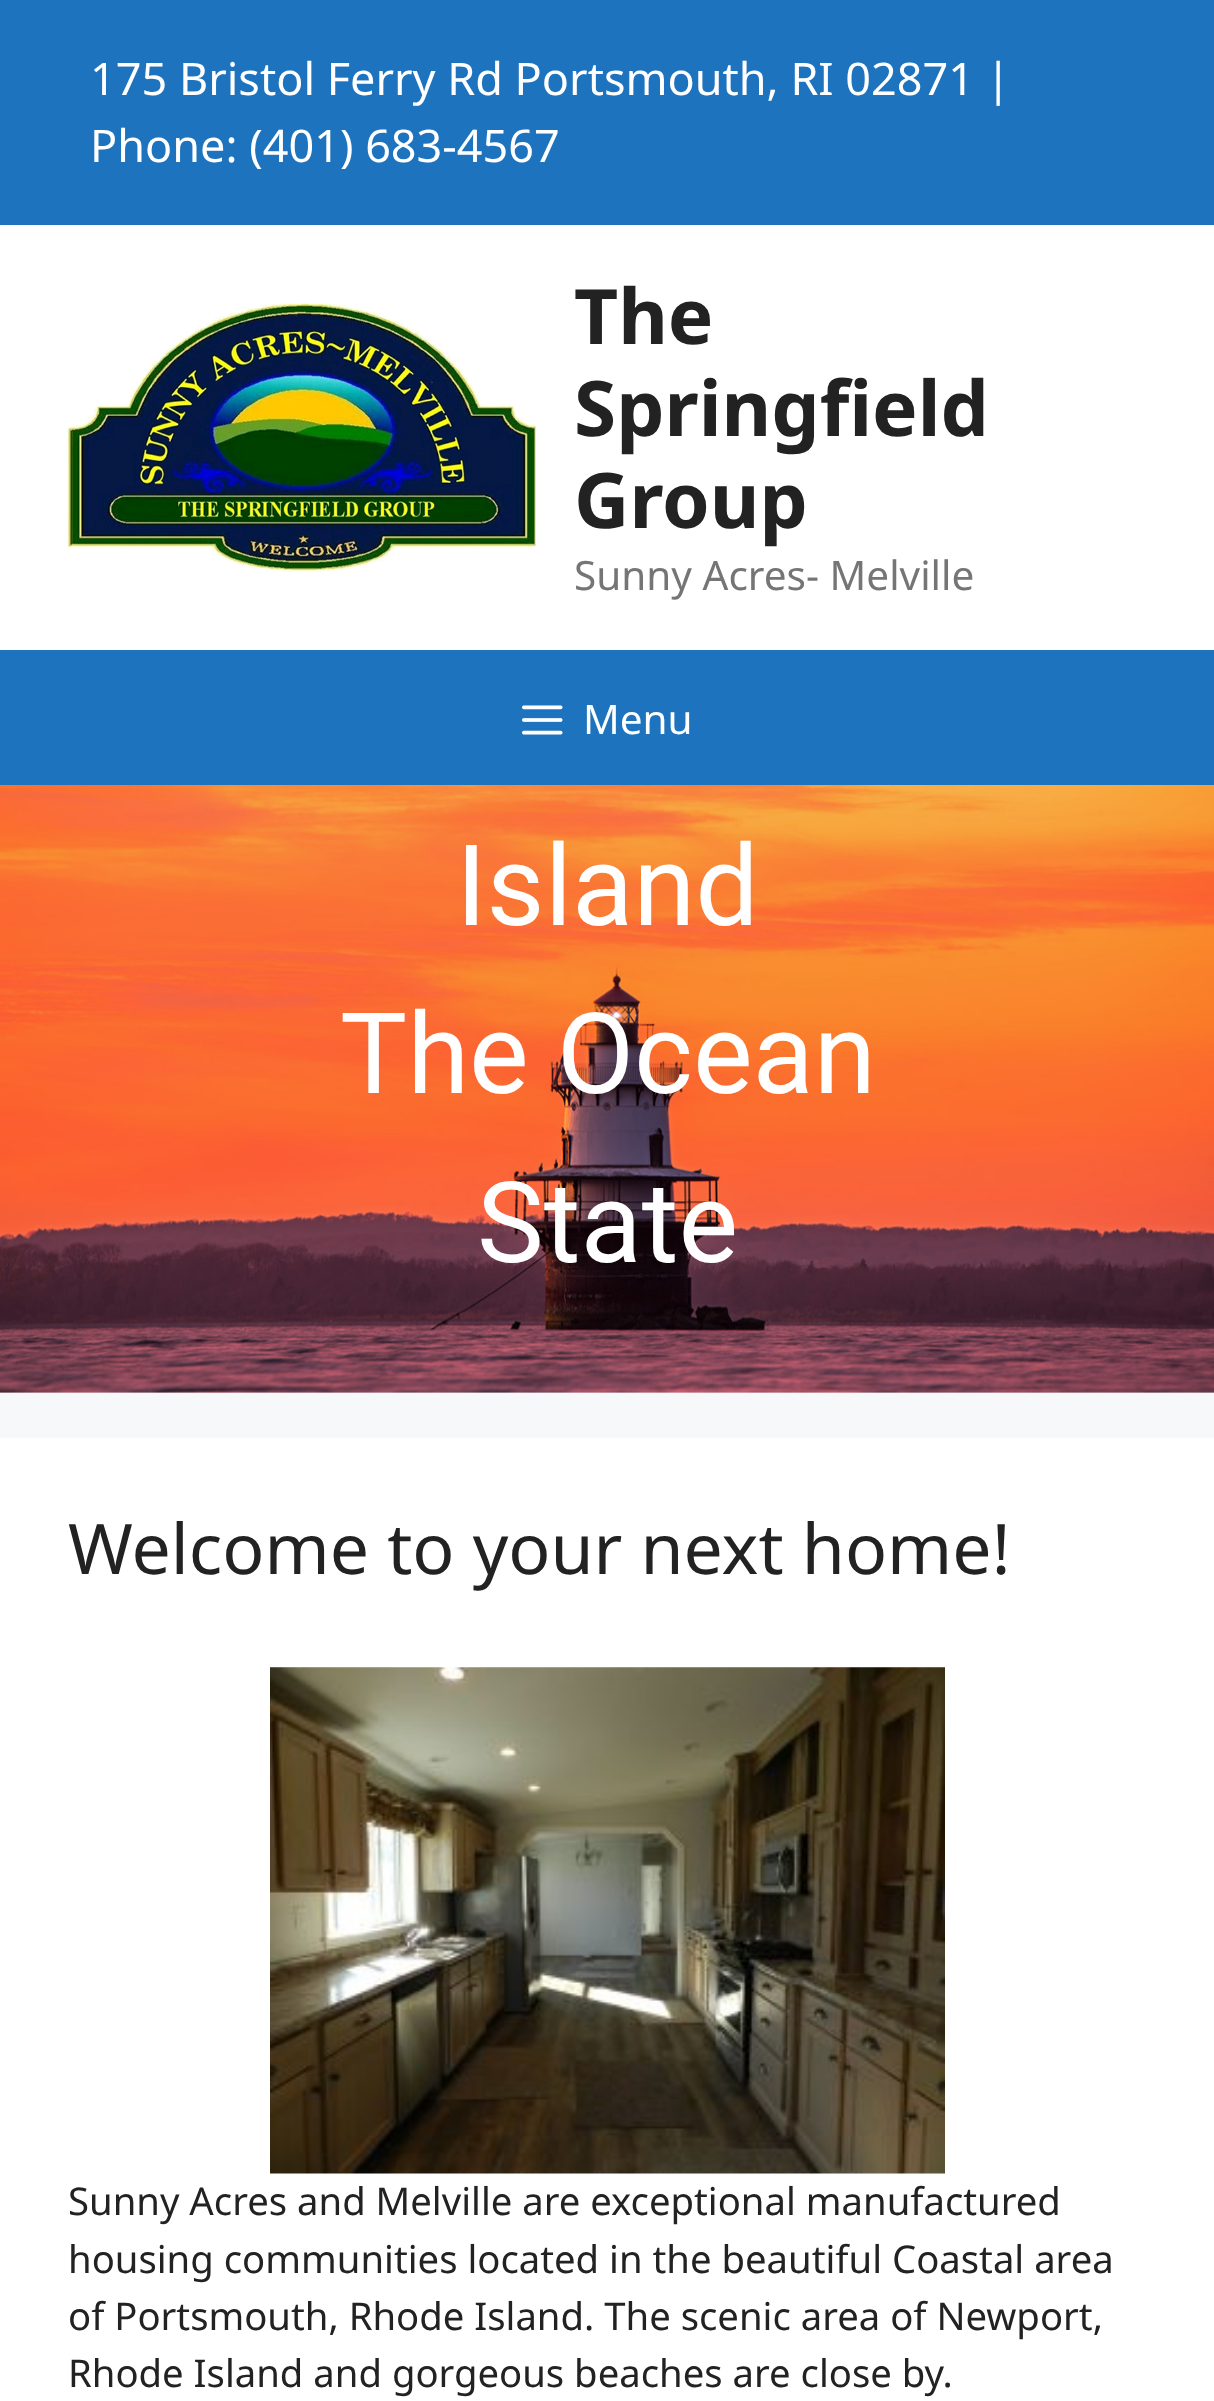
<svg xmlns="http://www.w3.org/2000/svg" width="1214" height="2401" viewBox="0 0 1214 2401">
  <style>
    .t1 { font: 45px Noto Sans; fill: #fff; }
    .t2 { font: bold 76.5px Noto Sans; fill: #222; }
    .t3 { font: 40.5px Noto Sans; fill: #757575; }
    .t4 { font: 40.5px Noto Sans; fill: #fff; }
    .t5 { font: 112.5px Roboto; fill: #fff; }
    .t6 { font: 69.75px Noto Sans; fill: #222; }
    .t7 { font: 38.25px Noto Sans; fill: #222; }
  </style>
  <rect width="100%" height="100%" fill="#f7f8f9"/>
  <rect x="0" y="0" width="1214" height="225" fill="#1e73be"/>
  <text x="90" y="95" class="t1">175 Bristol Ferry Rd Portsmouth, RI 02871 |</text>
  <text x="90" y="162" class="t1">Phone: (401) 683-4567</text>
  <rect x="0" y="225" width="1214" height="425" fill="#fff"/>
  <image x="67" y="303" width="469" height="269" href="images/1.png"/>
  <text x="574" y="344" class="t2">The</text>
  <text x="574" y="436" class="t2">Springfield</text>
  <text x="574" y="528" class="t2">Group</text>
  <text x="574" y="590" class="t3">Sunny Acres- Melville</text>
  <rect x="0" y="650" width="1214" height="135" fill="#1e73be"/>
  <image x="522" y="705" width="41" height="30" href="images/2.png"/>
  <text x="583" y="734" class="t4">Menu</text>
  <image x="0" y="785" width="1214" height="608" href="images/3.png"/>
  <text x="456" y="925" class="t5">Island</text>
  <text x="340" y="1093" class="t5">The Ocean</text>
  <text x="477" y="1262" class="t5">State</text>
  <rect x="0" y="1438" width="1214" height="963" fill="#fff"/>
  <text x="68" y="1574" class="t6">Welcome to your next home!</text>
  <image x="270" y="1667" width="675" height="507" href="images/4.png"/>
  <text x="68" y="2215" class="t7">Sunny Acres and Melville are exceptional manufactured</text>
  <text x="68" y="2273" class="t7">housing communities located in the beautiful Coastal area</text>
  <text x="68" y="2330" class="t7">of Portsmouth, Rhode Island. The scenic area of Newport,</text>
  <text x="68" y="2387" class="t7">Rhode Island and gorgeous beaches are close by.</text>
</svg>
